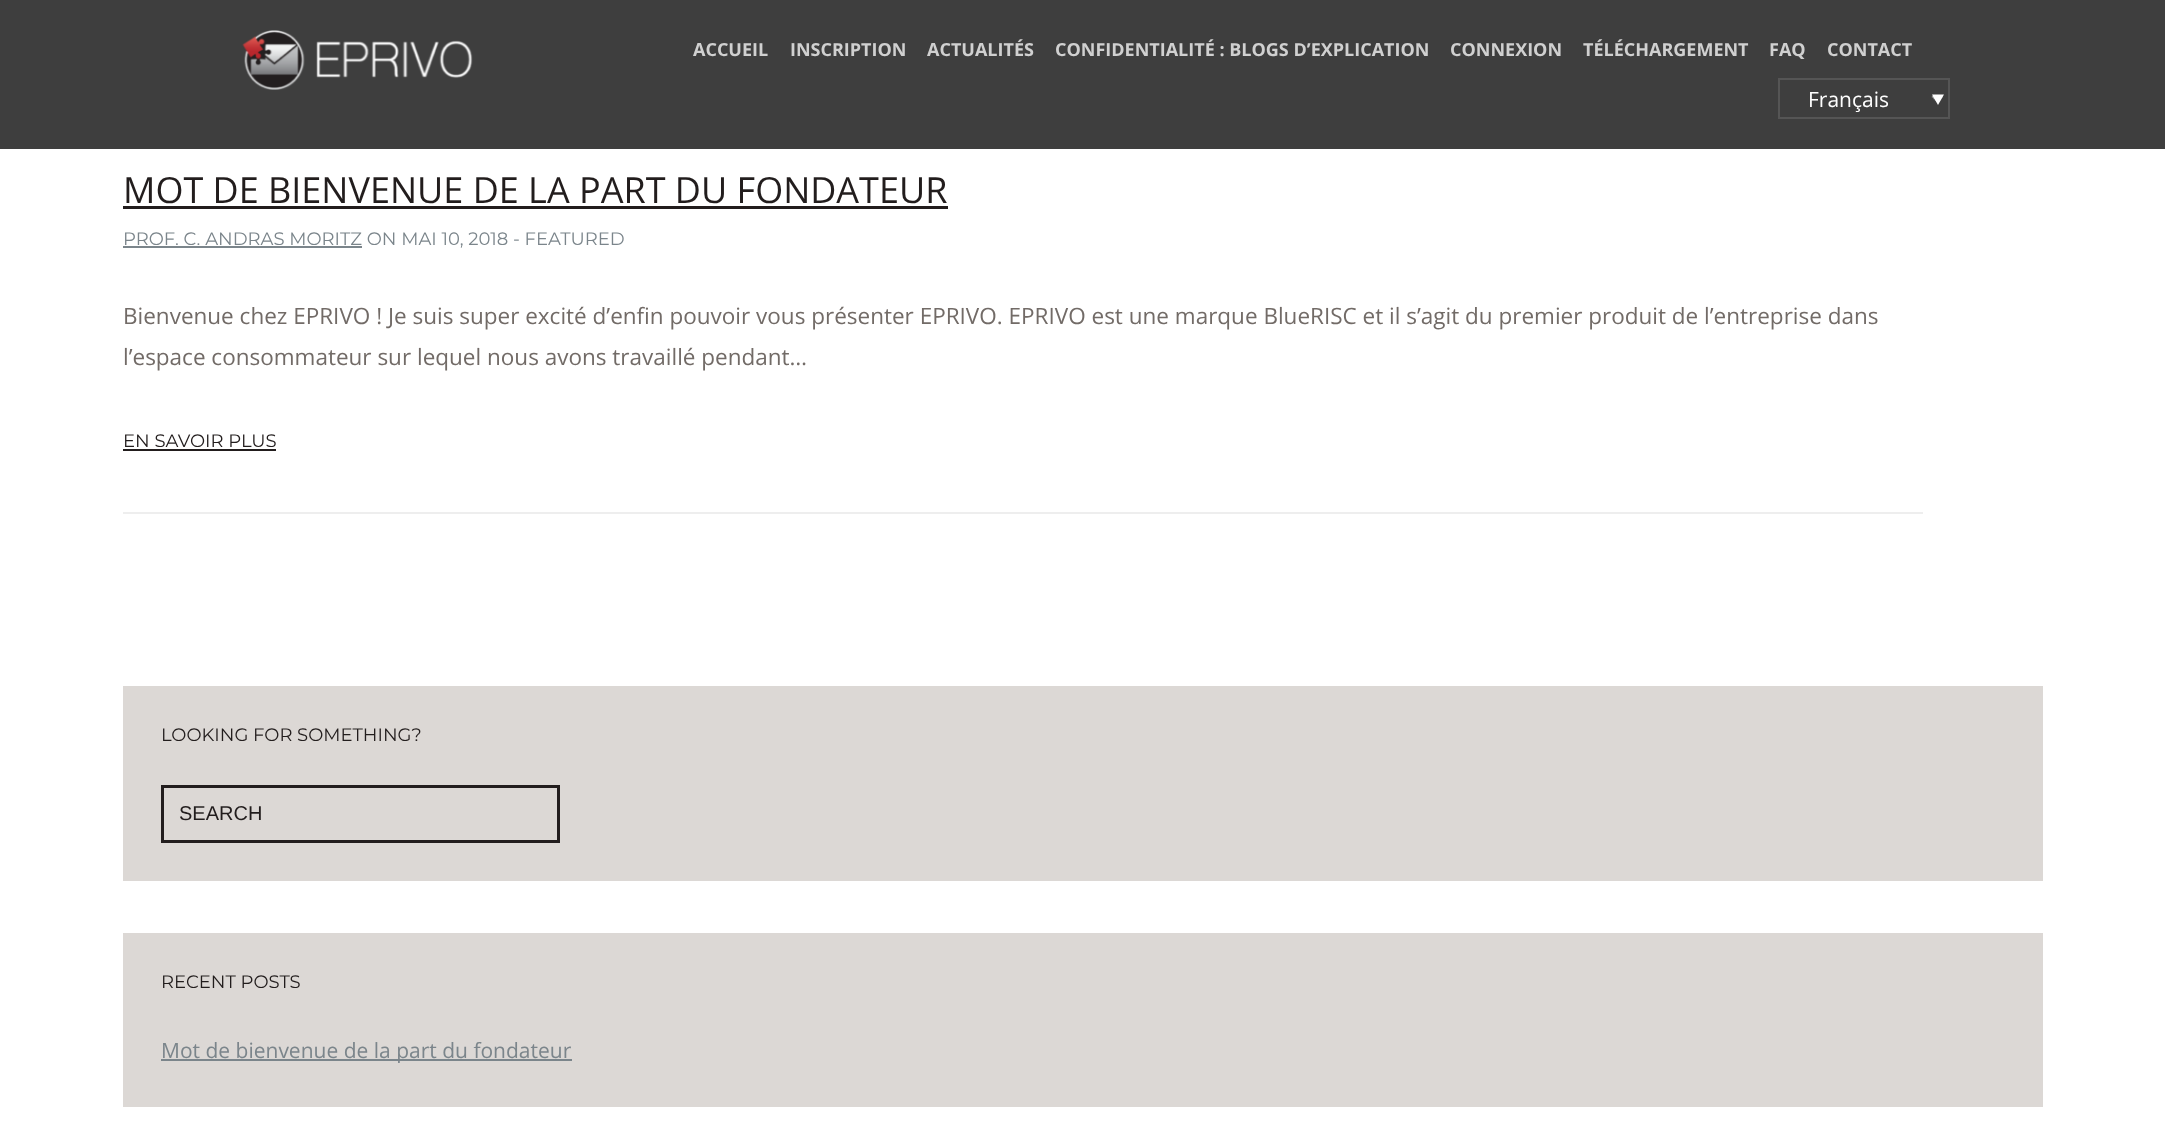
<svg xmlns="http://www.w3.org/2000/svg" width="2165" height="1143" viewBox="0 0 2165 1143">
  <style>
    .t1 { font: bold 18px Open Sans; fill: #d0d0d0; }
    .t2 { font: 21px Open Sans; fill: #fff; }
    .t3 { font: 36px Open Sans; fill: #221d1d; }
    .t4 { font: 100 18px Montserrat; fill: #7b858b; }
    .t5 { font: 22.5px Open Sans; fill: #726b67; }
    .t6 { font: 100 18px Montserrat; fill: #221d1d; }
    .t7 { font: 20px Liberation Sans; fill: #221d1d; }
    .t8 { font: 21px Open Sans; fill: #7b858b; }
  </style>
  <rect width="100%" height="100%" fill="#fff"/>
  <rect x="0" y="0" width="2165" height="149" fill="#3e3e3e"/>
  <image x="242" y="30" width="231" height="60" href="images/1.png"/>
  <text x="693" y="56" class="t1">ACCUEIL</text>
  <text x="790" y="56" class="t1">INSCRIPTION</text>
  <text x="927" y="56" class="t1">ACTUALITÉS</text>
  <text x="1055" y="56" class="t1">CONFIDENTIALITÉ : BLOGS D’EXPLICATION</text>
  <text x="1450" y="56" class="t1">CONNEXION</text>
  <text x="1583" y="56" class="t1">TÉLÉCHARGEMENT</text>
  <text x="1769" y="56" class="t1">FAQ</text>
  <text x="1827" y="56" class="t1">CONTACT</text>
  <image x="1931" y="95" width="12" height="8" href="images/2.png"/>
  <rect x="1779" y="79" width="170" height="39" fill="none" stroke="#555" stroke-width="2"/>
  <text x="1808" y="107" class="t2">Français</text>
  <path d="M1932 94.5H1944L1938 105Z" fill="#fff"/>
  <rect x="123" y="512" width="1800" height="2" fill="#eee"/>
  <text x="123" y="203" class="t3">MOT DE BIENVENUE DE LA PART DU FONDATEUR</text>
  <rect x="123" y="206" width="825" height="3" fill="#221d1d"/>
  <rect x="123" y="246" width="239" height="2" fill="#7b858b"/>
  <text x="123" y="245" class="t4">PROF. C. ANDRAS MORITZ ON MAI 10, 2018 - FEATURED</text>
  <text x="123" y="324" class="t5">Bienvenue chez EPRIVO ! Je suis super excité d’enfin pouvoir vous présenter EPRIVO. EPRIVO est une marque BlueRISC et il s’agit du premier produit de l’entreprise dans</text>
  <text x="123" y="365" class="t5">l’espace consommateur sur lequel nous avons travaillé pendant…</text>
  <text x="123" y="447" class="t6">EN SAVOIR PLUS</text>
  <rect x="123" y="449" width="153" height="2" fill="#221d1d"/>
  <rect x="123" y="686" width="1920" height="195" fill="#dcd8d5"/>
  <text x="161" y="741" class="t6">LOOKING FOR SOMETHING?</text>
  <rect x="162.5" y="786.5" width="396" height="55" fill="none" stroke="#221d1d" stroke-width="3"/>
  <text x="179" y="820" class="t7">SEARCH</text>
  <rect x="123" y="933" width="1920" height="174" fill="#dcd8d5"/>
  <text x="161" y="988" class="t6">RECENT POSTS</text>
  <rect x="161" y="1059" width="411" height="2" fill="#7b858b"/>
  <text x="161" y="1058" class="t8">Mot de bienvenue de la part du fondateur</text>
</svg>
